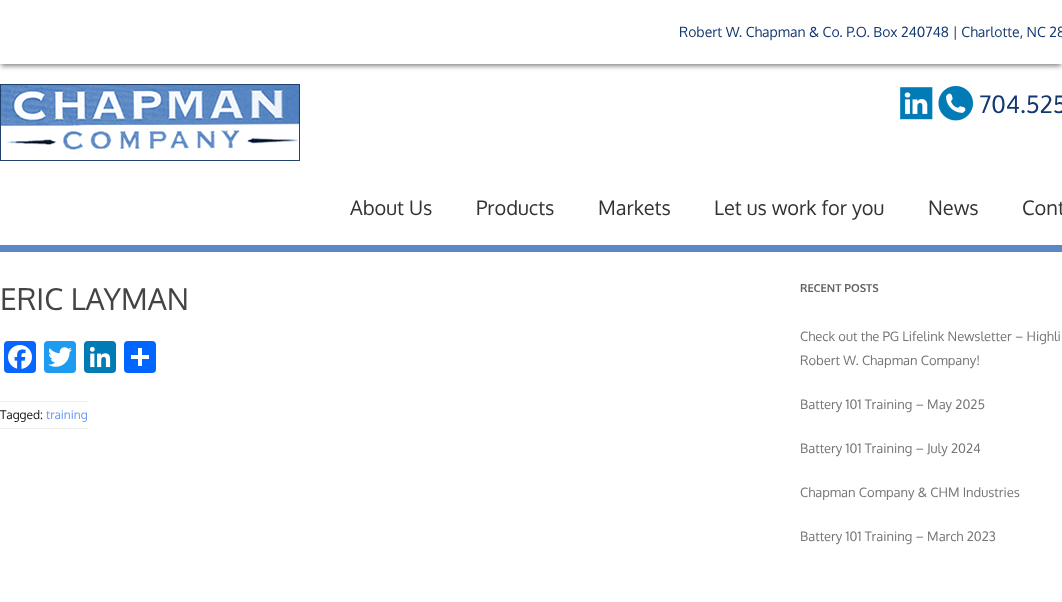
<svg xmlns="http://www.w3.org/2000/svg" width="1062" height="602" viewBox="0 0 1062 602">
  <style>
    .t1 { font: 14px Oxygen; fill: #133971; }
    .t2 { font: 24px Oxygen; fill: #133971; }
    .t3 { font: 20px Oxygen; fill: #333; }
    .t4 { font: 30px Oxygen; fill: #444; }
    .t5 { font: 12px Oxygen; fill: #191313; }
    .t6 { font: 12px Oxygen; fill: #69f; }
    .t7 { font: bold 11px Oxygen; fill: #636363; }
    .t8 { font: 13px Oxygen; fill: #757575; }
  </style>
  <defs>
    <clipPath id="clip1"><rect x="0" y="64" width="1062" height="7"/></clipPath>
  </defs>
  <rect width="100%" height="100%" fill="#fff"/>
  <g clip-path="url(#clip1)">
    <rect x="1" y="4" width="1060" height="62" fill="#858185" filter="blur(2.5px)"/>
  </g>
  <text x="679" y="37" class="t1">Robert W. Chapman &amp; Co. P.O. Box 240748 | Charlotte, NC 28</text>
  <image x="0" y="84" width="300" height="77" href="images/1.png"/>
  <image x="900" y="87" width="33" height="33" href="images/2.png"/>
  <image x="938" y="86" width="35" height="35" href="images/3.png"/>
  <text x="979" y="113" class="t2">704.525</text>
  <rect x="0" y="245" width="1062" height="7" fill="#5a88c4"/>
  <text x="350" y="215" class="t3">About Us</text>
  <text x="476" y="215" class="t3">Products</text>
  <text x="598" y="215" class="t3">Markets</text>
  <text x="714" y="215" class="t3">Let us work for you</text>
  <text x="928" y="215" class="t3">News</text>
  <text x="1022" y="215" class="t3">Cont</text>
  <text x="0" y="310" class="t4">ERIC LAYMAN</text>
  <rect x="4" y="341" width="32" height="32" rx="4" fill="#0866ff"/>
  <image x="8" y="345" width="24" height="24" href="images/4.png"/>
  <rect x="44" y="341" width="32" height="32" rx="4" fill="#1d9bf0"/>
  <image x="48" y="347" width="24" height="20" href="images/5.png"/>
  <rect x="84" y="341" width="32" height="32" rx="4" fill="#007bb5"/>
  <image x="89" y="346" width="22" height="22" href="images/6.png"/>
  <rect x="124" y="341" width="32" height="32" rx="4" fill="#0166ff"/>
  <rect x="138" y="348" width="4" height="18" fill="#fff"/>
  <rect x="131" y="355" width="18" height="4" fill="#fff"/>
  <rect x="0" y="401" width="88" height="1" fill="#eee"/>
  <rect x="0" y="428" width="88" height="1" fill="#eee"/>
  <text x="0" y="419" class="t5">Tagged:</text>
  <text x="46" y="419" class="t6">training</text>
  <text x="800" y="292" class="t7">RECENT POSTS</text>
  <text x="800" y="341" class="t8">Check out the PG Lifelink Newsletter – Highli</text>
  <text x="800" y="365" class="t8">Robert W. Chapman Company!</text>
  <text x="800" y="409" class="t8">Battery 101 Training – May 2025</text>
  <text x="800" y="453" class="t8">Battery 101 Training – July 2024</text>
  <text x="800" y="497" class="t8">Chapman Company &amp; CHM Industries</text>
  <text x="800" y="541" class="t8">Battery 101 Training – March 2023</text>
</svg>
